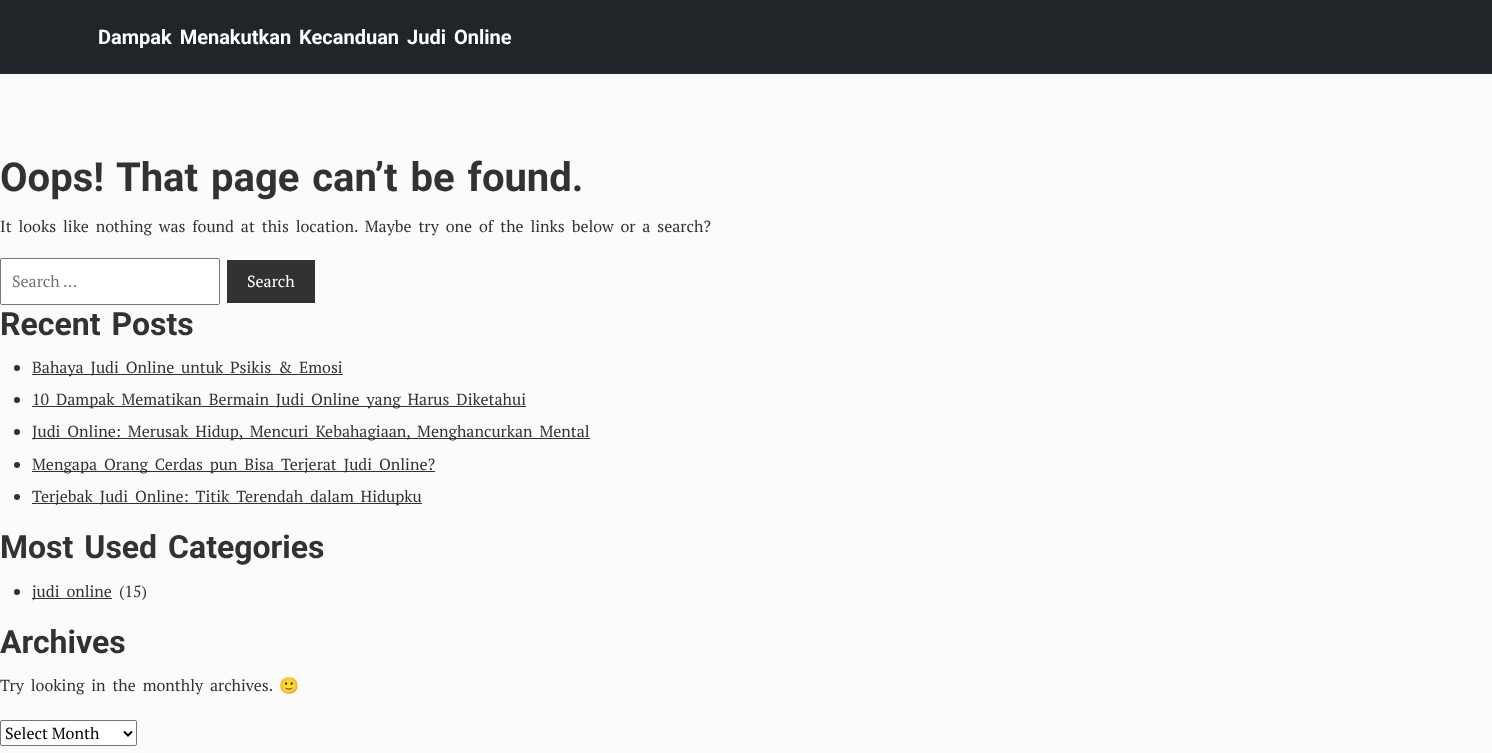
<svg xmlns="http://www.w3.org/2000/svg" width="1492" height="753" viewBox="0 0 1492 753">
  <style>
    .t1 { font: bold 20px Roboto; fill: #fff; }
    .t2 { font: bold 40px Roboto; fill: #323232; }
    .t3 { font: 16px PT Serif; fill: #323232; }
    .t4 { font: 16px PT Serif; fill: #757575; }
    .t5 { font: 16px PT Serif; fill: #fff; }
    .t6 { font: bold 32px Roboto; fill: #323232; }
    .t7 { font: 16px Noto Color Emoji; fill: #323232; }
    .t8 { font: 16px PT Serif; fill: #000; }
  </style>
  <rect width="100%" height="100%" fill="#fbfbfb"/>
  <rect x="0" y="0" width="1492" height="74" fill="#212529"/>
  <text x="98" y="44" word-spacing="3" class="t1">Dampak Menakutkan Kecanduan Judi Online</text>
  <text x="0" y="191" word-spacing="3" class="t2">Oops! That page can’t be found.</text>
  <text x="0" y="232" word-spacing="3" class="t3">It looks like nothing was found at this location. Maybe try one of the links below or a search?</text>
  <rect x="0.5" y="258.5" width="219" height="46" rx="1.5" fill="#fff" stroke="#767676"/>
  <text x="12" y="287" class="t4">Search …</text>
  <rect x="227" y="260" width="88" height="43" fill="#323232"/>
  <text x="247" y="287" class="t5">Search</text>
  <text x="0" y="335" word-spacing="3" class="t6">Recent Posts</text>
  <circle cx="17" cy="368" r="3" fill="#323232"/>
  <rect x="32" y="374" width="311" height="1" fill="#323232"/>
  <text x="32" y="373" word-spacing="3" class="t3">Bahaya Judi Online untuk Psikis &amp; Emosi</text>
  <circle cx="17" cy="400" r="3" fill="#323232"/>
  <rect x="32" y="406" width="494" height="1" fill="#323232"/>
  <text x="32" y="405" word-spacing="3" class="t3">10 Dampak Mematikan Bermain Judi Online yang Harus Diketahui</text>
  <circle cx="17" cy="432" r="3" fill="#323232"/>
  <rect x="32" y="438" width="558" height="1" fill="#323232"/>
  <text x="32" y="437" word-spacing="3" class="t3">Judi Online: Merusak Hidup, Mencuri Kebahagiaan, Menghancurkan Mental</text>
  <circle cx="17" cy="465" r="3" fill="#323232"/>
  <rect x="32" y="471" width="403" height="1" fill="#323232"/>
  <text x="32" y="470" word-spacing="3" class="t3">Mengapa Orang Cerdas pun Bisa Terjerat Judi Online?</text>
  <circle cx="17" cy="497" r="3" fill="#323232"/>
  <rect x="32" y="503" width="390" height="1" fill="#323232"/>
  <text x="32" y="502" word-spacing="3" class="t3">Terjebak Judi Online: Titik Terendah dalam Hidupku</text>
  <text x="0" y="558" word-spacing="3" class="t6">Most Used Categories</text>
  <circle cx="17" cy="592" r="3" fill="#323232"/>
  <rect x="32" y="598" width="80" height="1" fill="#323232"/>
  <text x="32" y="597" word-spacing="3" class="t3">judi online</text>
  <text x="119" y="597" class="t3">(15)</text>
  <text x="0" y="653" class="t6">Archives</text>
  <text x="0" y="691" word-spacing="3" class="t3">Try looking in the monthly archives.</text>
  <text x="279" y="691" class="t7">🙂</text>
  <rect x="0.5" y="720.5" width="136" height="25" rx="1.5" fill="#fff" stroke="#767676"/>
  <path d="M124 731.5L128 735.5L132 731.5" fill="none" stroke="#000" stroke-width="2"/>
  <text x="5" y="739" class="t8">Select Month</text>
</svg>
